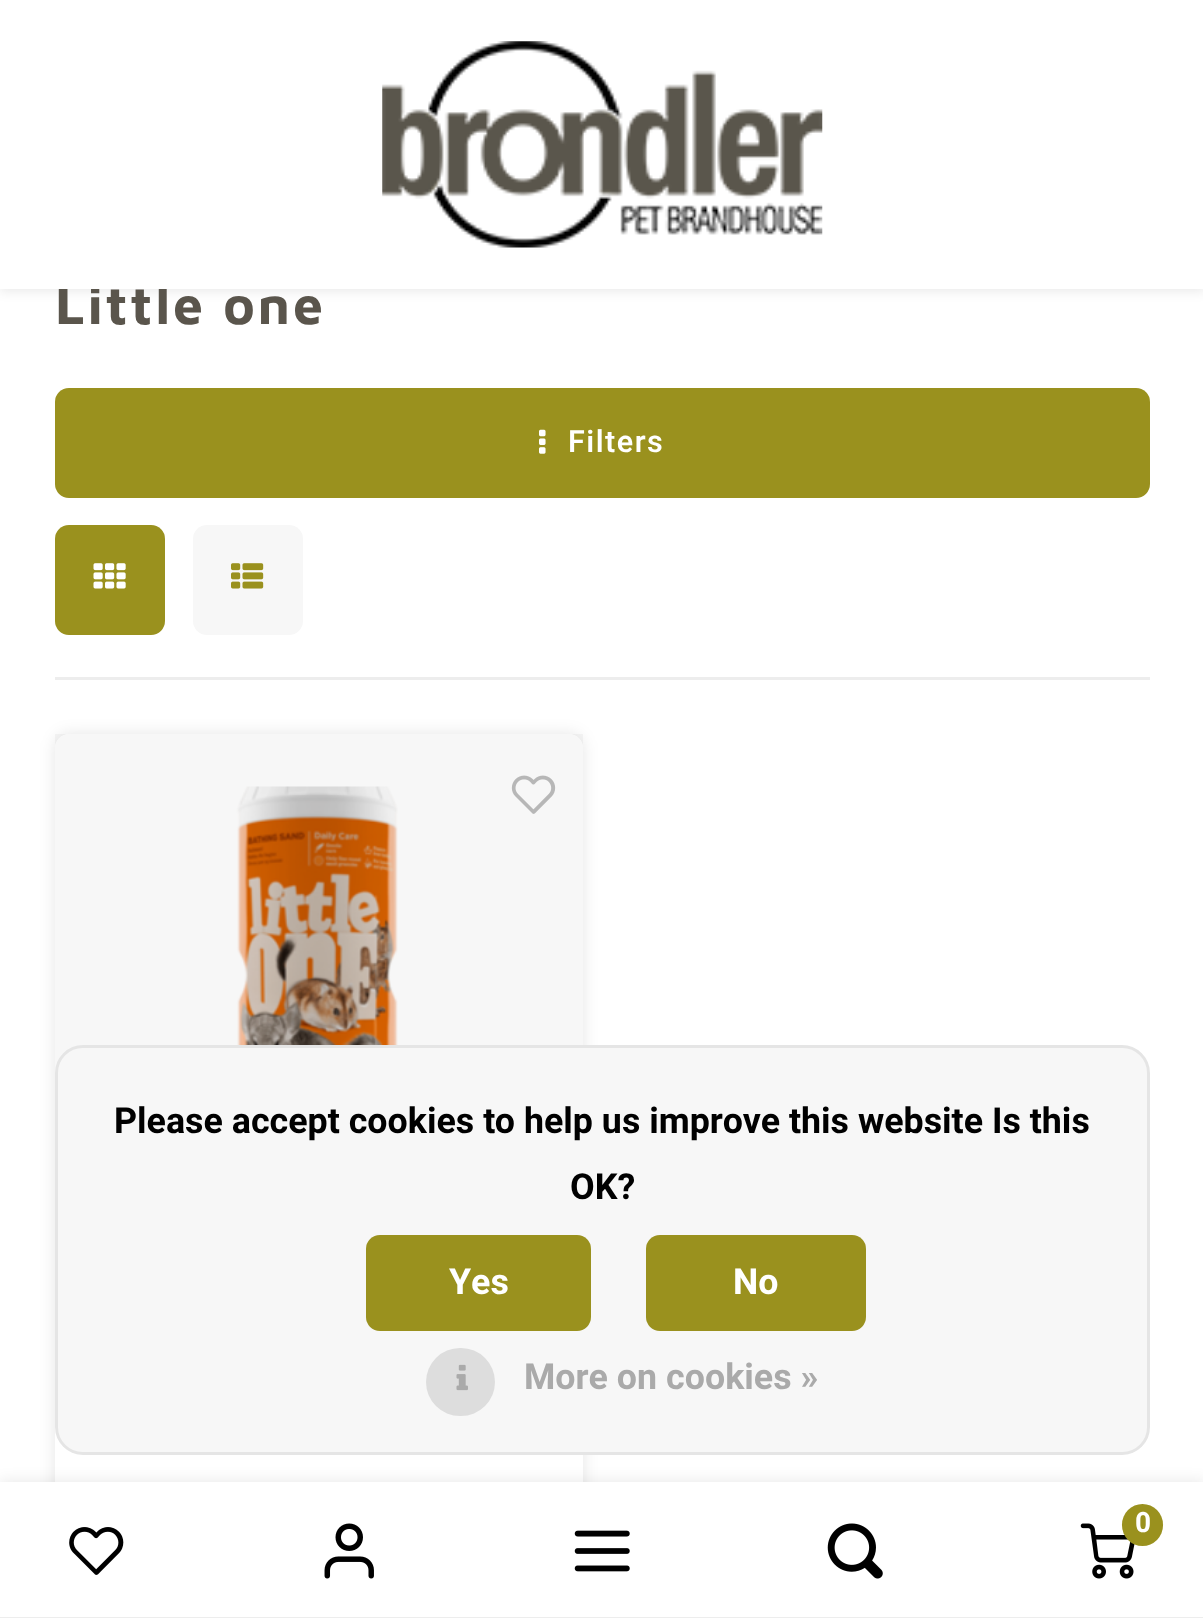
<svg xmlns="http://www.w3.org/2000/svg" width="1203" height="1618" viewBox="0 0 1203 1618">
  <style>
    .t1 { font: bold 53.5px Maven Pro; letter-spacing: 2.75px; fill: #5a554c; }
    .t2 { font: 600 30.5px Heebo; letter-spacing: 1.5px; fill: #fff; }
    .t3 { font: bold 35.75px Heebo; fill: #000; }
    .t4 { font: bold 35.75px Heebo; fill: #fff; }
    .t5 { font: bold 35.75px Heebo; fill: #aaa; }
    .t6 { font: bold 28px Heebo; fill: #fff; }
  </style>
  <rect width="100%" height="100%" fill="#fff"/>
  <rect x="0" y="3" width="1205" height="289" fill="#00000014" filter="blur(5.5px)"/>
  <text x="55" y="324" class="t1">Little one</text>
  <rect x="0" y="0" width="1203" height="289" fill="#fff"/>
  <image x="382" y="41" width="441" height="207" href="images/1.png"/>
  <rect x="55" y="677" width="1095" height="3" fill="#ededed"/>
  <rect x="55" y="388" width="1095" height="110" rx="14" fill="#9a911e"/>
  <image x="539" y="429" width="7" height="25" href="images/2.png"/>
  <text x="568" y="452" class="t2">Filters</text>
  <rect x="55" y="525" width="110" height="110" rx="14" fill="#9a911e"/>
  <image x="93" y="563" width="33" height="26" href="images/3.png"/>
  <rect x="193" y="525" width="110" height="110" rx="14" fill="#f7f7f7"/>
  <image x="231" y="563" width="33" height="26" href="images/4.png"/>
  <rect x="55" y="734" width="528" height="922" rx="14" fill="#0000001a" filter="blur(8px)"/>
  <rect x="55" y="734" width="528" height="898" rx="14" fill="#fff"/>
  <path d="M69 734H569C576.5 734 583 740.5 583 748V1262H55V748C55 740.5 61.5 734 69 734Z" fill="#fff"/>
  <image x="236" y="786" width="162" height="259" href="images/5.png"/>
  <rect x="55" y="734" width="528" height="339" fill="#00000008"/>
  <image x="511" y="775" width="45" height="39" href="images/6.png"/>
  <rect x="55" y="1045" width="1095" height="410" rx="28" fill="#f7f7f7"/>
  <rect x="56.5" y="1046.5" width="1092" height="407" rx="26.5" fill="none" stroke="#00000012" stroke-width="3"/>
  <text x="114" y="1133" class="t3">Please accept cookies to help us improve this website Is this</text>
  <text x="570" y="1199" class="t3">OK?</text>
  <rect x="366" y="1235" width="225" height="96" rx="14" fill="#9a911e"/>
  <text x="449" y="1294" class="t4">Yes</text>
  <rect x="646" y="1235" width="220" height="96" rx="14" fill="#9a911e"/>
  <text x="733" y="1294" class="t4">No</text>
  <rect x="426" y="1348" width="69" height="68" rx="34" fill="#ddd"/>
  <image x="456" y="1364" width="12" height="27" href="images/7.png"/>
  <text x="524" y="1389" class="t5">More on cookies »</text>
  <rect x="0" y="1480" width="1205" height="137" fill="#00000014" filter="blur(7px)"/>
  <rect x="0" y="1482" width="1203" height="135" fill="#fff"/>
  <rect x="0" y="1617" width="1203" height="1" fill="#ededed"/>
  <image x="69" y="1527" width="55" height="48" href="images/8.png"/>
  <image x="324" y="1523" width="50" height="56" href="images/9.png"/>
  <image x="574" y="1530" width="56" height="42" href="images/10.png"/>
  <image x="827" y="1523" width="56" height="56" href="images/11.png"/>
  <image x="1080" y="1523" width="55" height="56" href="images/12.png"/>
  <rect x="1122" y="1504" width="41" height="42" rx="20.5" fill="#9a911e"/>
  <text x="1135" y="1532" class="t6">0</text>
</svg>
